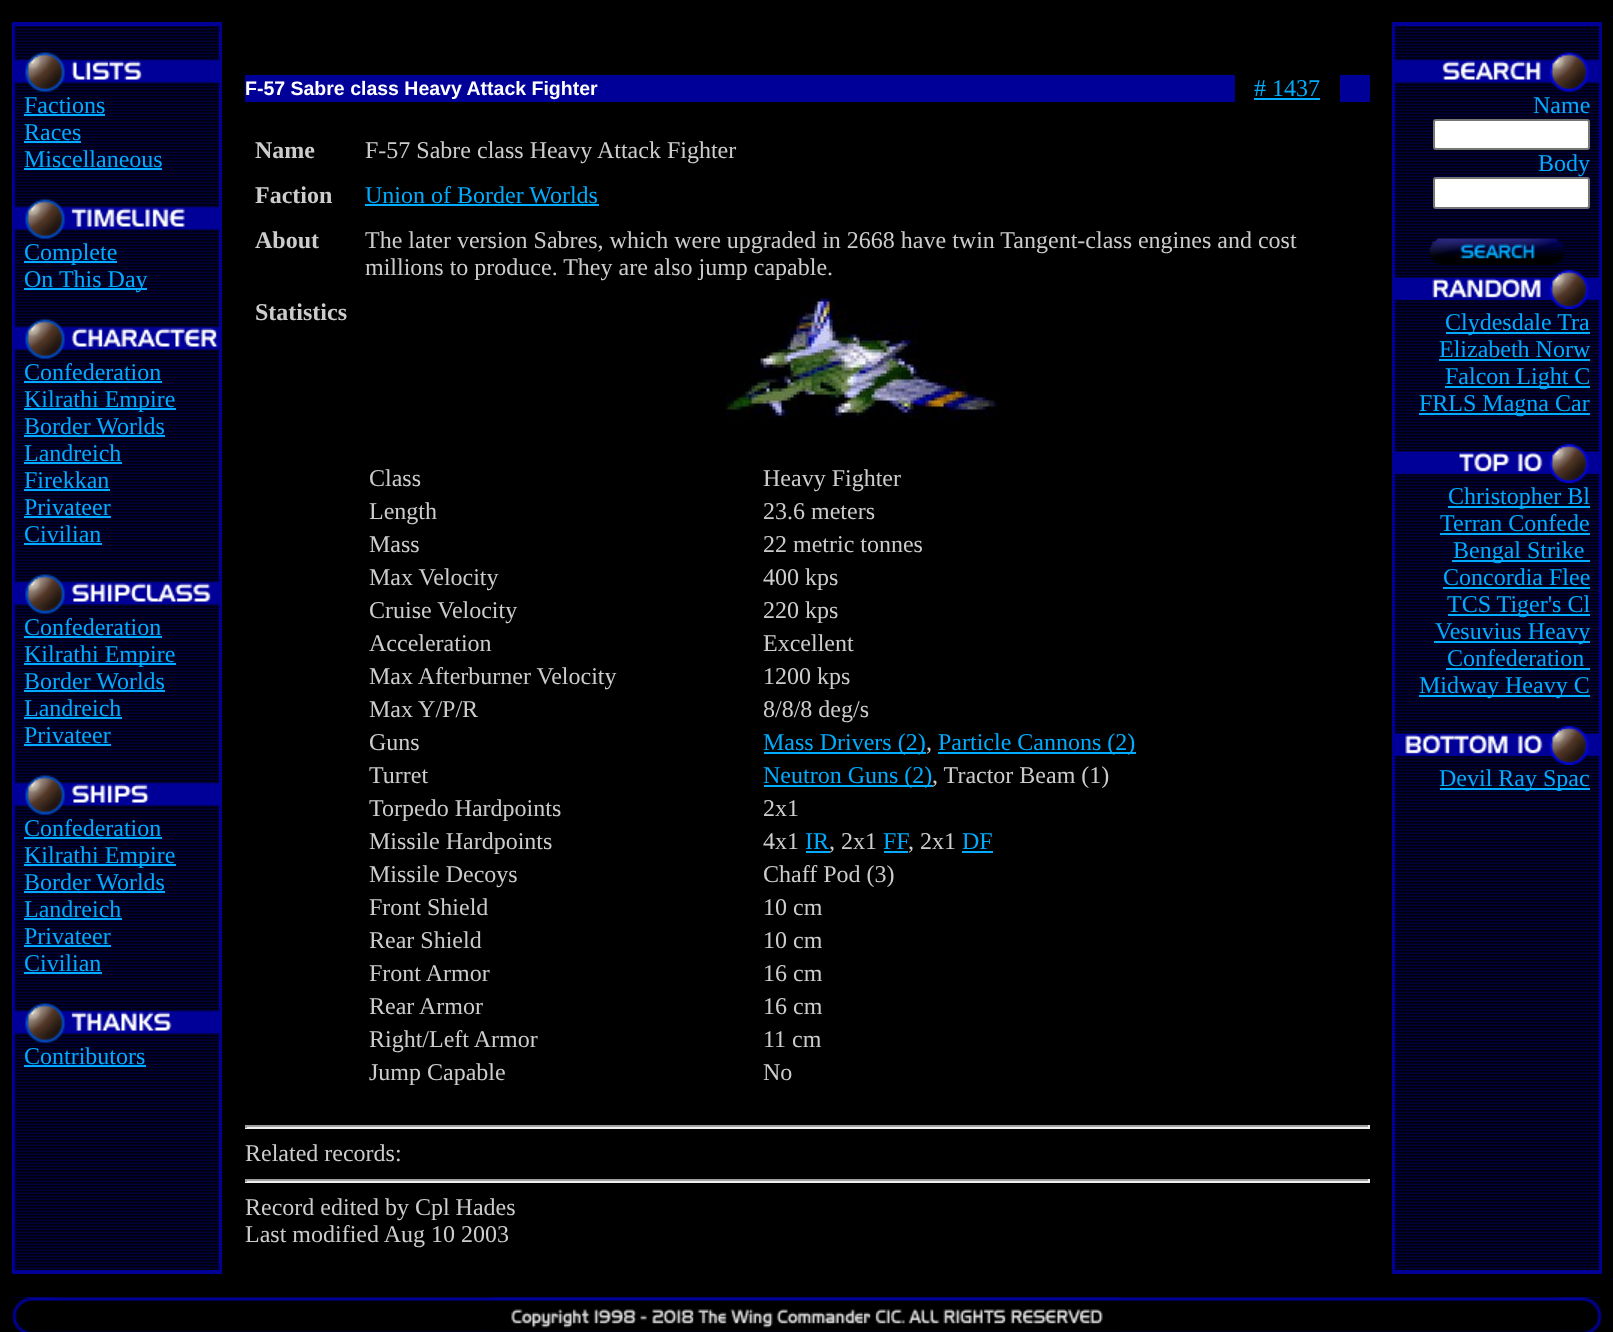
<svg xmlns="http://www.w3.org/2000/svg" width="1613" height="1332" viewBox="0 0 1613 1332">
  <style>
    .t1 { font: 24px Liberation Serif; fill: #01acfe; }
    .t2 { font: bold 19.5px Liberation Sans; fill: #fff; }
    .t3 { font: bold 24px Liberation Serif; fill: #ccc; }
    .t4 { font: 24px Liberation Serif; fill: #ccc; }
  </style>
  <rect width="100%" height="100%" fill="#000"/>
  <rect x="12" y="22" width="210" height="4" fill="#009"/>
  <rect x="1392" y="22" width="210" height="4" fill="#009"/>
  <image x="12" y="26" width="210" height="1244" href="images/1.png"/>
  <image x="14" y="52" width="206" height="40" href="images/2.png"/>
  <text x="24" y="113" class="t1">Factions</text>
  <rect x="24" y="114" width="81" height="2" fill="#01acfe"/>
  <text x="24" y="140" class="t1">Races</text>
  <rect x="24" y="141" width="57" height="2" fill="#01acfe"/>
  <text x="24" y="167" class="t1">Miscellaneous</text>
  <rect x="24" y="168" width="138" height="2" fill="#01acfe"/>
  <image x="14" y="199" width="206" height="40" href="images/3.png"/>
  <rect x="24" y="261" width="93" height="2" fill="#01acfe"/>
  <text x="24" y="260" class="t1">Complete</text>
  <rect x="24" y="288" width="123" height="2" fill="#01acfe"/>
  <text x="24" y="287" class="t1">On This Day</text>
  <image x="14" y="319" width="206" height="40" href="images/4.png"/>
  <text x="24" y="380" class="t1">Confederation</text>
  <rect x="24" y="381" width="138" height="2" fill="#01acfe"/>
  <rect x="24" y="408" width="152" height="2" fill="#01acfe"/>
  <text x="24" y="407" class="t1">Kilrathi Empire</text>
  <text x="24" y="434" class="t1">Border Worlds</text>
  <rect x="24" y="435" width="141" height="2" fill="#01acfe"/>
  <text x="24" y="461" class="t1">Landreich</text>
  <rect x="24" y="462" width="98" height="2" fill="#01acfe"/>
  <text x="24" y="488" class="t1">Firekkan</text>
  <rect x="24" y="489" width="86" height="2" fill="#01acfe"/>
  <text x="24" y="515" class="t1">Privateer</text>
  <rect x="24" y="516" width="87" height="2" fill="#01acfe"/>
  <text x="24" y="542" class="t1">Civilian</text>
  <rect x="24" y="543" width="78" height="2" fill="#01acfe"/>
  <image x="14" y="574" width="206" height="40" href="images/5.png"/>
  <text x="24" y="635" class="t1">Confederation</text>
  <rect x="24" y="636" width="138" height="2" fill="#01acfe"/>
  <rect x="24" y="663" width="152" height="2" fill="#01acfe"/>
  <text x="24" y="662" class="t1">Kilrathi Empire</text>
  <text x="24" y="689" class="t1">Border Worlds</text>
  <rect x="24" y="690" width="141" height="2" fill="#01acfe"/>
  <text x="24" y="716" class="t1">Landreich</text>
  <rect x="24" y="717" width="98" height="2" fill="#01acfe"/>
  <text x="24" y="743" class="t1">Privateer</text>
  <rect x="24" y="744" width="87" height="2" fill="#01acfe"/>
  <image x="14" y="775" width="206" height="40" href="images/6.png"/>
  <text x="24" y="836" class="t1">Confederation</text>
  <rect x="24" y="837" width="138" height="2" fill="#01acfe"/>
  <rect x="24" y="864" width="152" height="2" fill="#01acfe"/>
  <text x="24" y="863" class="t1">Kilrathi Empire</text>
  <text x="24" y="890" class="t1">Border Worlds</text>
  <rect x="24" y="891" width="141" height="2" fill="#01acfe"/>
  <text x="24" y="917" class="t1">Landreich</text>
  <rect x="24" y="918" width="98" height="2" fill="#01acfe"/>
  <text x="24" y="944" class="t1">Privateer</text>
  <rect x="24" y="945" width="87" height="2" fill="#01acfe"/>
  <text x="24" y="971" class="t1">Civilian</text>
  <rect x="24" y="972" width="78" height="2" fill="#01acfe"/>
  <image x="14" y="1003" width="206" height="40" href="images/7.png"/>
  <text x="24" y="1064" class="t1">Contributors</text>
  <rect x="24" y="1065" width="122" height="2" fill="#01acfe"/>
  <rect x="245" y="75" width="1125" height="27" fill="#009"/>
  <text x="245" y="95" class="t2">F-57 Sabre class Heavy Attack Fighter</text>
  <rect x="1235" y="75" width="105" height="27" fill="#000"/>
  <text x="1254" y="96" class="t1"># 1437</text>
  <rect x="1254" y="98" width="66" height="2" fill="#01acfe"/>
  <text x="255" y="158" class="t3">Name</text>
  <text x="365" y="158" class="t4">F-57 Sabre class Heavy Attack Fighter</text>
  <text x="255" y="203" class="t3">Faction</text>
  <text x="365" y="203" class="t1">Union of Border Worlds</text>
  <rect x="365" y="204" width="234" height="2" fill="#01acfe"/>
  <text x="255" y="248" class="t3">About</text>
  <text x="365" y="248" class="t4">The later version Sabres, which were upgraded in 2668 have twin Tangent-class engines and cost</text>
  <text x="365" y="275" class="t4">millions to produce. They are also jump capable.</text>
  <text x="255" y="320" class="t3">Statistics</text>
  <image x="726" y="298" width="272" height="121" href="images/8.png"/>
  <text x="369" y="486" class="t4">Class</text>
  <text x="763" y="486" class="t4">Heavy Fighter</text>
  <text x="369" y="519" class="t4">Length</text>
  <text x="763" y="519" class="t4">23.6 meters</text>
  <text x="369" y="552" class="t4">Mass</text>
  <text x="763" y="552" class="t4">22 metric tonnes</text>
  <text x="369" y="585" class="t4">Max Velocity</text>
  <text x="763" y="585" class="t4">400 kps</text>
  <text x="369" y="618" class="t4">Cruise Velocity</text>
  <text x="763" y="618" class="t4">220 kps</text>
  <text x="369" y="651" class="t4">Acceleration</text>
  <text x="763" y="651" class="t4">Excellent</text>
  <text x="369" y="684" class="t4">Max Afterburner Velocity</text>
  <text x="763" y="684" class="t4">1200 kps</text>
  <text x="369" y="717" class="t4">Max Y/P/R</text>
  <text x="763" y="717" class="t4">8/8/8 deg/s</text>
  <text x="369" y="750" class="t4">Guns</text>
  <rect x="764" y="752" width="162" height="2" fill="#01acfe"/>
  <text x="763" y="750" class="t1">Mass Drivers (2)</text>
  <text x="926" y="750" class="t4">,</text>
  <rect x="938" y="752" width="198" height="2" fill="#01acfe"/>
  <text x="938" y="750" class="t1">Particle Cannons (2)</text>
  <text x="369" y="783" class="t4">Turret</text>
  <rect x="764" y="785" width="169" height="2" fill="#01acfe"/>
  <text x="763" y="783" class="t1">Neutron Guns (2)</text>
  <text x="932" y="783" class="t4">, Tractor Beam (1)</text>
  <text x="369" y="816" class="t4">Torpedo Hardpoints</text>
  <text x="763" y="816" class="t4">2x1</text>
  <text x="369" y="849" class="t4">Missile Hardpoints</text>
  <text x="763" y="849" class="t4">4x1</text>
  <text x="805" y="849" class="t1">IR</text>
  <rect x="806" y="851" width="24" height="2" fill="#01acfe"/>
  <text x="829" y="849" class="t4">, 2x1</text>
  <text x="883" y="849" class="t1">FF</text>
  <rect x="884" y="851" width="24" height="2" fill="#01acfe"/>
  <text x="908" y="849" class="t4">, 2x1</text>
  <text x="962" y="849" class="t1">DF</text>
  <rect x="962" y="851" width="31" height="2" fill="#01acfe"/>
  <text x="369" y="882" class="t4">Missile Decoys</text>
  <text x="763" y="882" class="t4">Chaff Pod (3)</text>
  <text x="369" y="915" class="t4">Front Shield</text>
  <text x="763" y="915" class="t4">10 cm</text>
  <text x="369" y="948" class="t4">Rear Shield</text>
  <text x="763" y="948" class="t4">10 cm</text>
  <text x="369" y="981" class="t4">Front Armor</text>
  <text x="763" y="981" class="t4">16 cm</text>
  <text x="369" y="1014" class="t4">Rear Armor</text>
  <text x="763" y="1014" class="t4">16 cm</text>
  <text x="369" y="1047" class="t4">Right/Left Armor</text>
  <text x="763" y="1047" class="t4">11 cm</text>
  <text x="369" y="1080" class="t4">Jump Capable</text>
  <text x="763" y="1080" class="t4">No</text>
  <rect x="245" y="1125" width="1125" height="2" fill="#9f9f9f"/>
  <rect x="1368" y="1125" width="2" height="3" fill="#eee"/>
  <rect x="245" y="1127" width="1125" height="2" fill="#eee"/>
  <rect x="245" y="1125" width="2" height="3" fill="#9f9f9f"/>
  <text x="245" y="1161" class="t4">Related records:</text>
  <rect x="245" y="1179" width="1125" height="2" fill="#9f9f9f"/>
  <rect x="1368" y="1179" width="2" height="3" fill="#eee"/>
  <rect x="245" y="1181" width="1125" height="2" fill="#eee"/>
  <rect x="245" y="1179" width="2" height="3" fill="#9f9f9f"/>
  <text x="245" y="1215" class="t4">Record edited by Cpl Hades</text>
  <text x="245" y="1242" class="t4">Last modified Aug 10 2003</text>
  <image x="1392" y="26" width="210" height="1244" href="images/1.png"/>
  <image x="1394" y="52" width="206" height="40" href="images/9.png"/>
  <text x="1533" y="113" class="t1">Name</text>
  <rect x="1434" y="120" width="155" height="29" rx="2" fill="#fff" stroke="#767676" stroke-width="2"/>
  <text x="1538" y="171" class="t1">Body</text>
  <rect x="1434" y="178" width="155" height="30" rx="2" fill="#fff" stroke="#767676" stroke-width="2"/>
  <image x="1429" y="238" width="136" height="28" href="images/10.png"/>
  <image x="1394" y="270" width="206" height="39" href="images/11.png"/>
  <rect x="1446" y="332" width="144" height="2" fill="#01acfe"/>
  <text x="1445" y="330" class="t1">Clydesdale Tra</text>
  <text x="1439" y="357" class="t1">Elizabeth Norw</text>
  <rect x="1439" y="359" width="151" height="2" fill="#01acfe"/>
  <rect x="1445" y="386" width="145" height="2" fill="#01acfe"/>
  <text x="1445" y="384" class="t1">Falcon Light C</text>
  <rect x="1419" y="413" width="171" height="2" fill="#01acfe"/>
  <text x="1419" y="411" class="t1">FRLS Magna Car</text>
  <image x="1394" y="444" width="206" height="39" href="images/12.png"/>
  <rect x="1448" y="506" width="142" height="2" fill="#01acfe"/>
  <text x="1448" y="504" class="t1">Christopher Bl</text>
  <text x="1440" y="531" class="t1">Terran Confede</text>
  <rect x="1440" y="533" width="150" height="2" fill="#01acfe"/>
  <rect x="1452" y="560" width="138" height="2" fill="#01acfe"/>
  <text x="1453" y="558" class="t1">Bengal Strike</text>
  <text x="1443" y="585" class="t1">Concordia Flee</text>
  <rect x="1443" y="587" width="147" height="2" fill="#01acfe"/>
  <rect x="1448" y="614" width="142" height="2" fill="#01acfe"/>
  <text x="1447" y="612" class="t1">TCS Tiger's Cl</text>
  <rect x="1434" y="641" width="156" height="2" fill="#01acfe"/>
  <text x="1435" y="639" class="t1">Vesuvius Heavy</text>
  <text x="1447" y="666" class="t1">Confederation</text>
  <rect x="1446" y="668" width="144" height="2" fill="#01acfe"/>
  <rect x="1419" y="695" width="171" height="2" fill="#01acfe"/>
  <text x="1419" y="693" class="t1">Midway Heavy C</text>
  <image x="1394" y="726" width="206" height="39" href="images/13.png"/>
  <rect x="1440" y="788" width="150" height="2" fill="#01acfe"/>
  <text x="1439" y="786" class="t1">Devil Ray Spac</text>
  <rect x="12" y="1270" width="210" height="4" fill="#009"/>
  <rect x="1392" y="1270" width="210" height="4" fill="#009"/>
  <image x="12" y="1297" width="210" height="35" href="images/14.png"/>
  <image x="12" y="1297" width="42" height="35" href="images/15.png"/>
  <image x="222" y="1297" width="1170" height="35" href="images/16.png"/>
  <image x="492" y="1297" width="630" height="35" href="images/17.png"/>
  <image x="1392" y="1297" width="210" height="35" href="images/14.png"/>
  <image x="1560" y="1297" width="42" height="35" href="images/18.png"/>
</svg>
